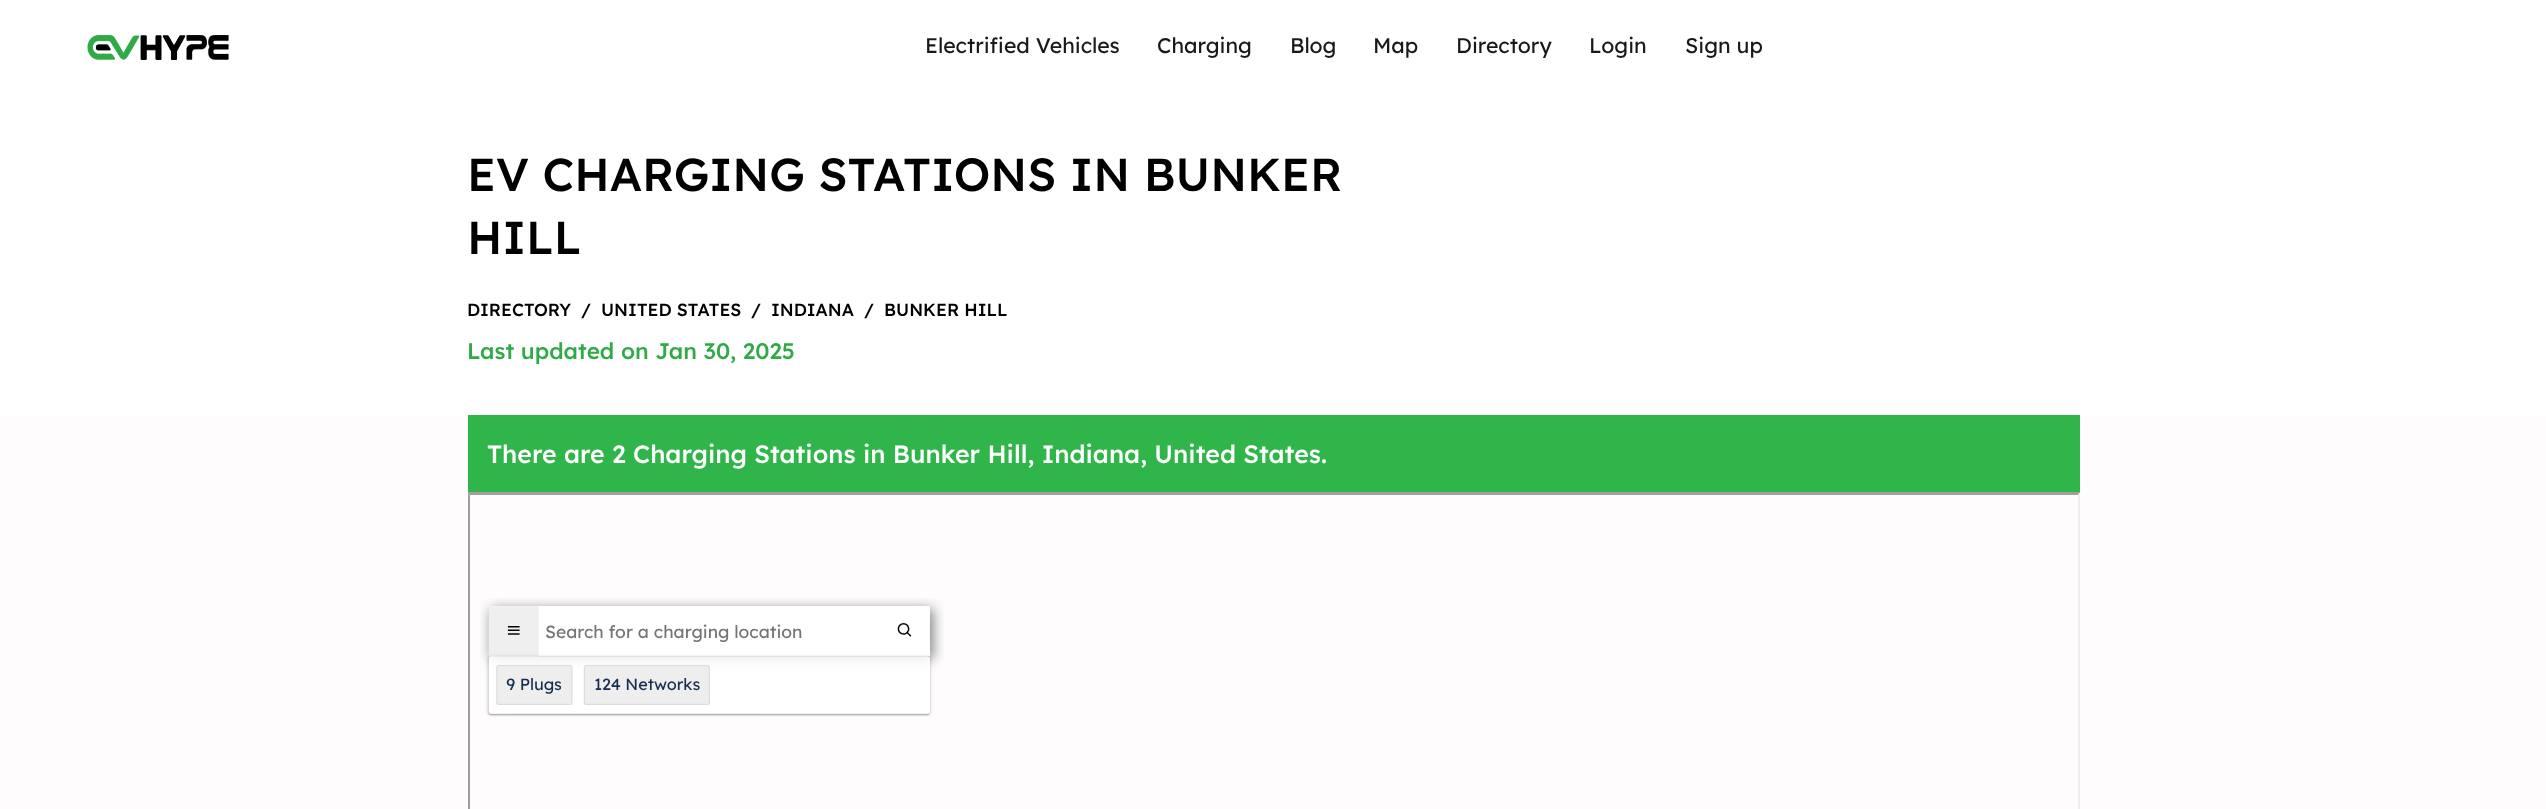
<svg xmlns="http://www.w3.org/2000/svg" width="2546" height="809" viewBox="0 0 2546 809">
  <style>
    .t1 { font: 21.25px Lexend Deca; fill: #1a1919; }
    .t2 { font: 500 46.25px Lexend Deca; fill: #000; }
    .t3 { font: 500 17.5px Lexend Deca; fill: #000; }
    .t4 { font: 500 22.5px Lexend Deca; fill: #2faa47; }
    .t5 { font: 500 25px Lexend Deca; fill: #fff; }
  </style>
  <rect width="100%" height="100%" fill="#fefcfc"/>
  <rect x="0" y="0" width="2546" height="415" fill="#fff"/>
  <image x="87" y="35" width="142" height="25" href="images/1.png"/>
  <text x="925" y="53" class="t1">Electrified Vehicles</text>
  <text x="1157" y="53" class="t1">Charging</text>
  <text x="1290" y="53" class="t1">Blog</text>
  <text x="1373" y="53" class="t1">Map</text>
  <text x="1456" y="53" class="t1">Directory</text>
  <text x="1589" y="53" class="t1">Login</text>
  <text x="1685" y="53" class="t1">Sign up</text>
  <text x="467" y="191" class="t2">EV CHARGING STATIONS IN BUNKER</text>
  <text x="467" y="254" class="t2">HILL</text>
  <text x="467" y="316" class="t3">DIRECTORY</text>
  <text x="581" y="316" class="t3">/</text>
  <text x="601" y="316" class="t3">UNITED STATES</text>
  <text x="751" y="316" class="t3">/</text>
  <text x="771" y="316" class="t3">INDIANA</text>
  <text x="864" y="316" class="t3">/</text>
  <text x="884" y="316" class="t3">BUNKER HILL</text>
  <text x="467" y="359" class="t4">Last updated on Jan 30, 2025</text>
  <rect x="468" y="415" width="1612" height="78" fill="#30b54a"/>
  <text x="487" y="463" class="t5">There are 2 Charging Stations in Bunker Hill, Indiana, United States.</text>
  <path d="M468 492H2080L2078 495H470Z" fill="#9f9f9f"/>
  <path d="M468 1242V492L470 495V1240Z" fill="#9f9f9f"/>
  <image x="480" y="598" width="464" height="119" href="images/2.png"/>
  <path d="M2080 492V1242L2078 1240V495Z" fill="#eee"/>
</svg>
